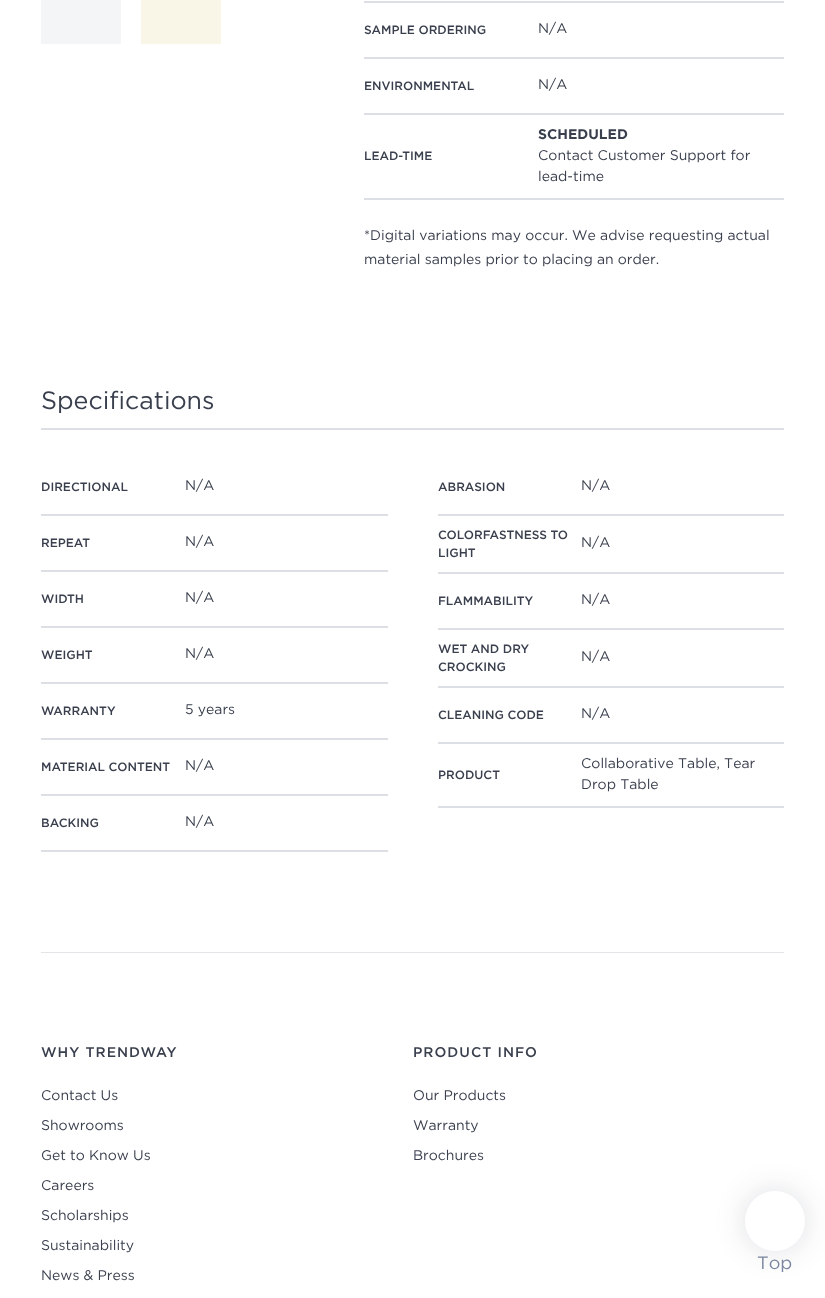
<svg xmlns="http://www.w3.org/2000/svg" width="825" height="1298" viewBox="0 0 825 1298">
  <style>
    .t1 { font: 500 12px Gotham; fill: #393f4d; }
    .t2 { font: 14px Gotham; fill: #393f4d; }
    .t3 { font: bold 14px Gotham; fill: #393f4d; }
    .t4 { font: 25px Gotham; fill: #393f4d; }
    .t5 { font: 500 14px Gotham; letter-spacing: 1px; fill: #393f4d; }
    .t6 { font: 18px Gotham; fill: #7a859f; }
  </style>
  <rect width="100%" height="100%" fill="#fff"/>
  <rect x="41" y="0" width="80" height="44" fill="#f4f5f7"/>
  <rect x="141" y="0" width="80" height="44" fill="#f9f6e7"/>
  <rect x="364" y="1" width="420" height="2" fill="#dcdfe4"/>
  <rect x="364" y="57" width="420" height="2" fill="#dcdfe4"/>
  <text x="364" y="34" class="t1">SAMPLE ORDERING</text>
  <text x="538" y="33" class="t2">N/A</text>
  <rect x="364" y="113" width="420" height="2" fill="#dcdfe4"/>
  <text x="364" y="90" class="t1">ENVIRONMENTAL</text>
  <text x="538" y="89" class="t2">N/A</text>
  <rect x="364" y="198" width="420" height="2" fill="#dcdfe4"/>
  <text x="364" y="160" class="t1">LEAD-TIME</text>
  <text x="538" y="139" class="t3">SCHEDULED</text>
  <text x="538" y="160" class="t2">Contact Customer Support for</text>
  <text x="538" y="181" class="t2">lead-time</text>
  <text x="364" y="240" class="t2">*Digital variations may occur. We advise requesting actual</text>
  <text x="364" y="264" class="t2">material samples prior to placing an order.</text>
  <text x="41" y="409" class="t4">Specifications</text>
  <rect x="41" y="428" width="743" height="2" fill="#dcdfe4"/>
  <rect x="41" y="514" width="347" height="2" fill="#dcdfe4"/>
  <text x="41" y="491" class="t1">DIRECTIONAL</text>
  <text x="185" y="490" class="t2">N/A</text>
  <rect x="438" y="514" width="346" height="2" fill="#dcdfe4"/>
  <text x="438" y="491" class="t1">ABRASION</text>
  <text x="581" y="490" class="t2">N/A</text>
  <rect x="41" y="570" width="347" height="2" fill="#dcdfe4"/>
  <text x="41" y="547" class="t1">REPEAT</text>
  <text x="185" y="546" class="t2">N/A</text>
  <rect x="438" y="572" width="346" height="2" fill="#dcdfe4"/>
  <text x="438" y="539" class="t1">COLORFASTNESS TO</text>
  <text x="438" y="557" class="t1">LIGHT</text>
  <text x="581" y="547" class="t2">N/A</text>
  <rect x="41" y="626" width="347" height="2" fill="#dcdfe4"/>
  <text x="41" y="603" class="t1">WIDTH</text>
  <text x="185" y="602" class="t2">N/A</text>
  <rect x="438" y="628" width="346" height="2" fill="#dcdfe4"/>
  <text x="438" y="605" class="t1">FLAMMABILITY</text>
  <text x="581" y="604" class="t2">N/A</text>
  <rect x="41" y="682" width="347" height="2" fill="#dcdfe4"/>
  <text x="41" y="659" class="t1">WEIGHT</text>
  <text x="185" y="658" class="t2">N/A</text>
  <rect x="438" y="686" width="346" height="2" fill="#dcdfe4"/>
  <text x="438" y="653" class="t1">WET AND DRY</text>
  <text x="438" y="671" class="t1">CROCKING</text>
  <text x="581" y="661" class="t2">N/A</text>
  <rect x="41" y="738" width="347" height="2" fill="#dcdfe4"/>
  <text x="41" y="715" class="t1">WARRANTY</text>
  <text x="185" y="714" class="t2">5 years</text>
  <rect x="438" y="742" width="346" height="2" fill="#dcdfe4"/>
  <text x="438" y="719" class="t1">CLEANING CODE</text>
  <text x="581" y="718" class="t2">N/A</text>
  <rect x="41" y="794" width="347" height="2" fill="#dcdfe4"/>
  <text x="41" y="771" class="t1">MATERIAL CONTENT</text>
  <text x="185" y="770" class="t2">N/A</text>
  <rect x="438" y="806" width="346" height="2" fill="#dcdfe4"/>
  <text x="438" y="779" class="t1">PRODUCT</text>
  <text x="581" y="768" class="t2">Collaborative Table, Tear</text>
  <text x="581" y="789" class="t2">Drop Table</text>
  <rect x="41" y="850" width="347" height="2" fill="#dcdfe4"/>
  <text x="41" y="827" class="t1">BACKING</text>
  <text x="185" y="826" class="t2">N/A</text>
  <rect x="41" y="952" width="743" height="1" fill="#e3e5e9"/>
  <text x="41" y="1057" class="t5">WHY TRENDWAY</text>
  <text x="41" y="1100" class="t2">Contact Us</text>
  <text x="41" y="1130" class="t2">Showrooms</text>
  <text x="41" y="1160" class="t2">Get to Know Us</text>
  <text x="41" y="1190" class="t2">Careers</text>
  <text x="41" y="1220" class="t2">Scholarships</text>
  <text x="41" y="1250" class="t2">Sustainability</text>
  <text x="41" y="1280" class="t2">News &amp; Press</text>
  <text x="413" y="1057" class="t5">PRODUCT INFO</text>
  <text x="413" y="1100" class="t2">Our Products</text>
  <text x="413" y="1130" class="t2">Warranty</text>
  <text x="413" y="1160" class="t2">Brochures</text>
  <rect x="745" y="1191" width="60" height="60" rx="30" fill="#19223726" filter="blur(15px)"/>
  <circle cx="775" cy="1221" r="30" fill="#fff"/>
  <text x="757" y="1269" class="t6">Top</text>
</svg>
